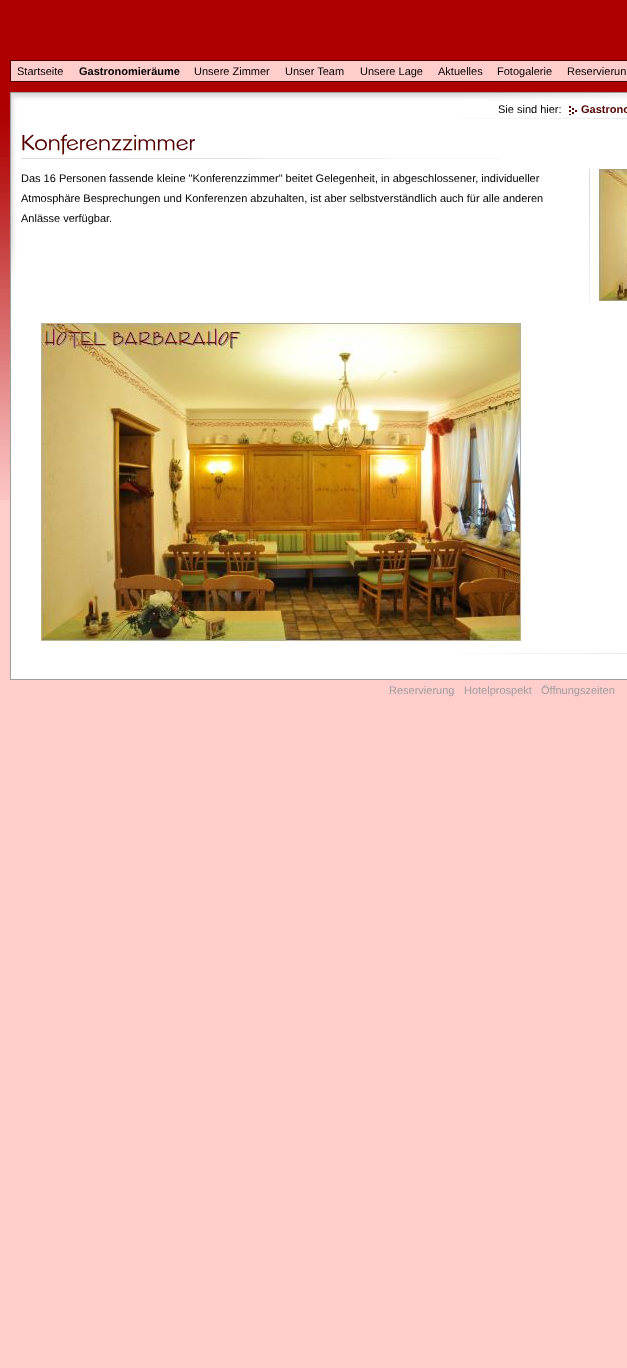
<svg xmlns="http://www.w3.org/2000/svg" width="627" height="1368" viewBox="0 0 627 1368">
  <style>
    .t1 { font: 11px Liberation Sans; fill: #000; }
    .t2 { font: bold 11px Liberation Sans; fill: #000; }
    .t3 { font: bold 11px Liberation Sans; fill: #510000; }
    .t4 { font: 11px Liberation Sans; fill: #9e9e9e; }
  </style>
  <rect width="100%" height="100%" fill="#ffcdcc"/>
  <image x="0" y="0" width="627" height="500" href="images/1.png"/>
  <rect x="10.5" y="60.5" width="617" height="21" fill="#ffcdcc" stroke="#510000"/>
  <text x="17" y="75" class="t1">Startseite</text>
  <text x="79" y="75" class="t2">Gastronomieräume</text>
  <text x="194" y="75" class="t1">Unsere Zimmer</text>
  <text x="285" y="75" class="t1">Unser Team</text>
  <text x="360" y="75" class="t1">Unsere Lage</text>
  <text x="438" y="75" class="t1">Aktuelles</text>
  <text x="497" y="75" class="t1">Fotogalerie</text>
  <text x="567" y="75" class="t1">Reservierun</text>
  <rect x="11" y="281" width="616" height="398" fill="#fff"/>
  <image x="11" y="93" width="616" height="188" href="images/2.png"/>
  <rect x="10.5" y="92.5" width="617" height="587" fill="none" stroke="#9e9e9e"/>
  <image x="459" y="118" width="168" height="1" href="images/3.png"/>
  <text x="498" y="113" class="t1">Sie sind hier:</text>
  <image x="569" y="106" width="8" height="9" href="images/4.png"/>
  <text x="581" y="113" class="t3">Gastrono</text>
  <image x="21" y="134" width="484" height="25" href="images/5.png"/>
  <text x="21" y="182" class="t1">Das 16 Personen fassende kleine "Konferenzzimmer" beitet Gelegenheit, in abgeschlossener, individueller</text>
  <text x="21" y="202" class="t1">Atmosphäre Besprechungen und Konferenzen abzuhalten, ist aber selbstverständlich auch für alle anderen</text>
  <text x="21" y="222" class="t1">Anlässe verfügbar.</text>
  <image x="589" y="169" width="1" height="134" href="images/6.png"/>
  <image x="599" y="169" width="28" height="132" href="images/7.png"/>
  <image x="41" y="323" width="480" height="318" href="images/8.png"/>
  <image x="459" y="653" width="168" height="1" href="images/3.png"/>
  <text x="389" y="694" class="t4">Reservierung</text>
  <text x="464" y="694" class="t4">Hotelprospekt</text>
  <text x="541" y="694" class="t4">Öffnungszeiten</text>
</svg>
